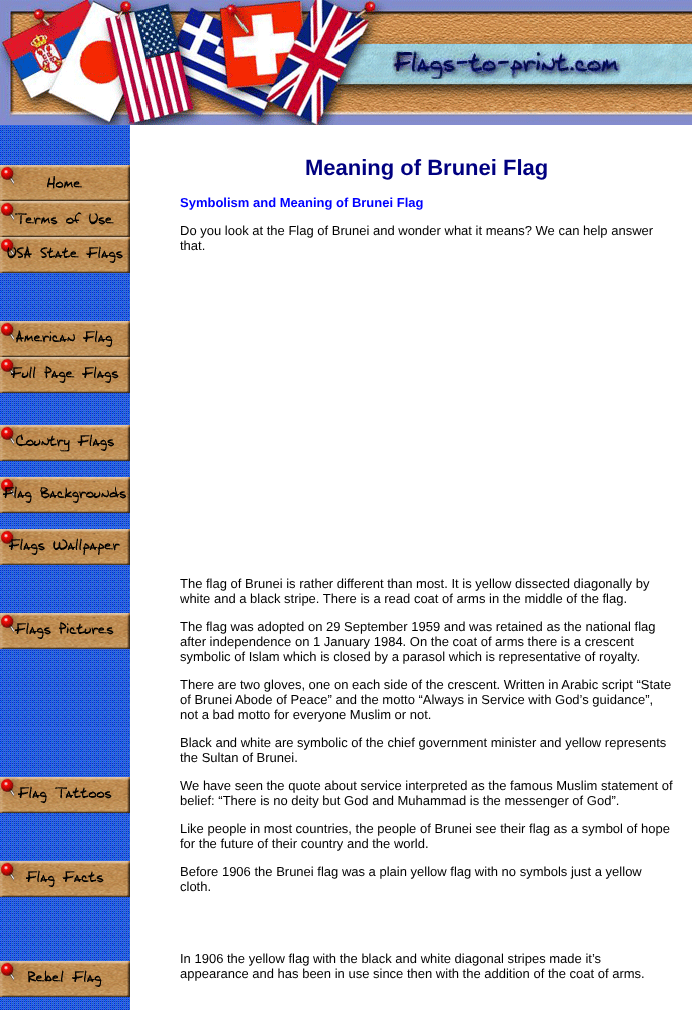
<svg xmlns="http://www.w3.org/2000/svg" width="692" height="1010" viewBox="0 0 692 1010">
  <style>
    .t1 { font: bold 22px Liberation Sans; fill: #000080; }
    .t2 { font: bold 13px Liberation Sans; fill: #00f; }
    .t3 { font: 13px Liberation Sans; fill: #000; }
  </style>
  <rect width="100%" height="100%" fill="#fff"/>
  <image x="0" y="0" width="692" height="125" href="images/1.png"/>
  <image x="0" y="125" width="130" height="694" href="images/2.png"/>
  <image x="0" y="165" width="130" height="36" href="images/3.png"/>
  <image x="0" y="201" width="130" height="36" href="images/4.png"/>
  <image x="0" y="237" width="130" height="36" href="images/5.png"/>
  <image x="0" y="321" width="130" height="36" href="images/6.png"/>
  <image x="0" y="357" width="130" height="36" href="images/7.png"/>
  <image x="0" y="425" width="130" height="36" href="images/8.png"/>
  <image x="0" y="477" width="130" height="36" href="images/9.png"/>
  <image x="0" y="529" width="130" height="36" href="images/10.png"/>
  <image x="0" y="613" width="130" height="36" href="images/11.png"/>
  <image x="0" y="777" width="130" height="36" href="images/12.png"/>
  <image x="0" y="819" width="130" height="191" href="images/15.png"/>
  <image x="0" y="861" width="130" height="36" href="images/13.png"/>
  <image x="0" y="961" width="130" height="36" href="images/14.png"/>
  <text x="305" y="175" class="t1">Meaning of Brunei Flag</text>
  <text x="180" y="207" class="t2">Symbolism and Meaning of Brunei Flag</text>
  <text x="180" y="235" class="t3">Do you look at the Flag of Brunei and wonder what it means? We can help answer</text>
  <text x="180" y="250" class="t3">that.</text>
  <text x="180" y="588" class="t3">The flag of Brunei is rather different than most. It is yellow dissected diagonally by</text>
  <text x="180" y="603" class="t3">white and a black stripe. There is a read coat of arms in the middle of the flag.</text>
  <text x="180" y="631" class="t3">The flag was adopted on 29 September 1959 and was retained as the national flag</text>
  <text x="180" y="646" class="t3">after independence on 1 January 1984. On the coat of arms there is a crescent</text>
  <text x="180" y="661" class="t3">symbolic of Islam which is closed by a parasol which is representative of royalty.</text>
  <text x="180" y="689" class="t3">There are two gloves, one on each side of the crescent. Written in Arabic script “State</text>
  <text x="180" y="704" class="t3">of Brunei Abode of Peace” and the motto “Always in Service with God’s guidance”,</text>
  <text x="180" y="719" class="t3">not a bad motto for everyone Muslim or not.</text>
  <text x="180" y="747" class="t3">Black and white are symbolic of the chief government minister and yellow represents</text>
  <text x="180" y="762" class="t3">the Sultan of Brunei.</text>
  <text x="180" y="790" class="t3">We have seen the quote about service interpreted as the famous Muslim statement of</text>
  <text x="180" y="805" class="t3">belief: “There is no deity but God and Muhammad is the messenger of God”.</text>
  <text x="180" y="833" class="t3">Like people in most countries, the people of Brunei see their flag as a symbol of hope</text>
  <text x="180" y="848" class="t3">for the future of their country and the world.</text>
  <text x="180" y="876" class="t3">Before 1906 the Brunei flag was a plain yellow flag with no symbols just a yellow</text>
  <text x="180" y="891" class="t3">cloth.</text>
  <text x="180" y="963" class="t3">In 1906 the yellow flag with the black and white diagonal stripes made it’s</text>
  <text x="180" y="978" class="t3">appearance and has been in use since then with the addition of the coat of arms.</text>
</svg>
